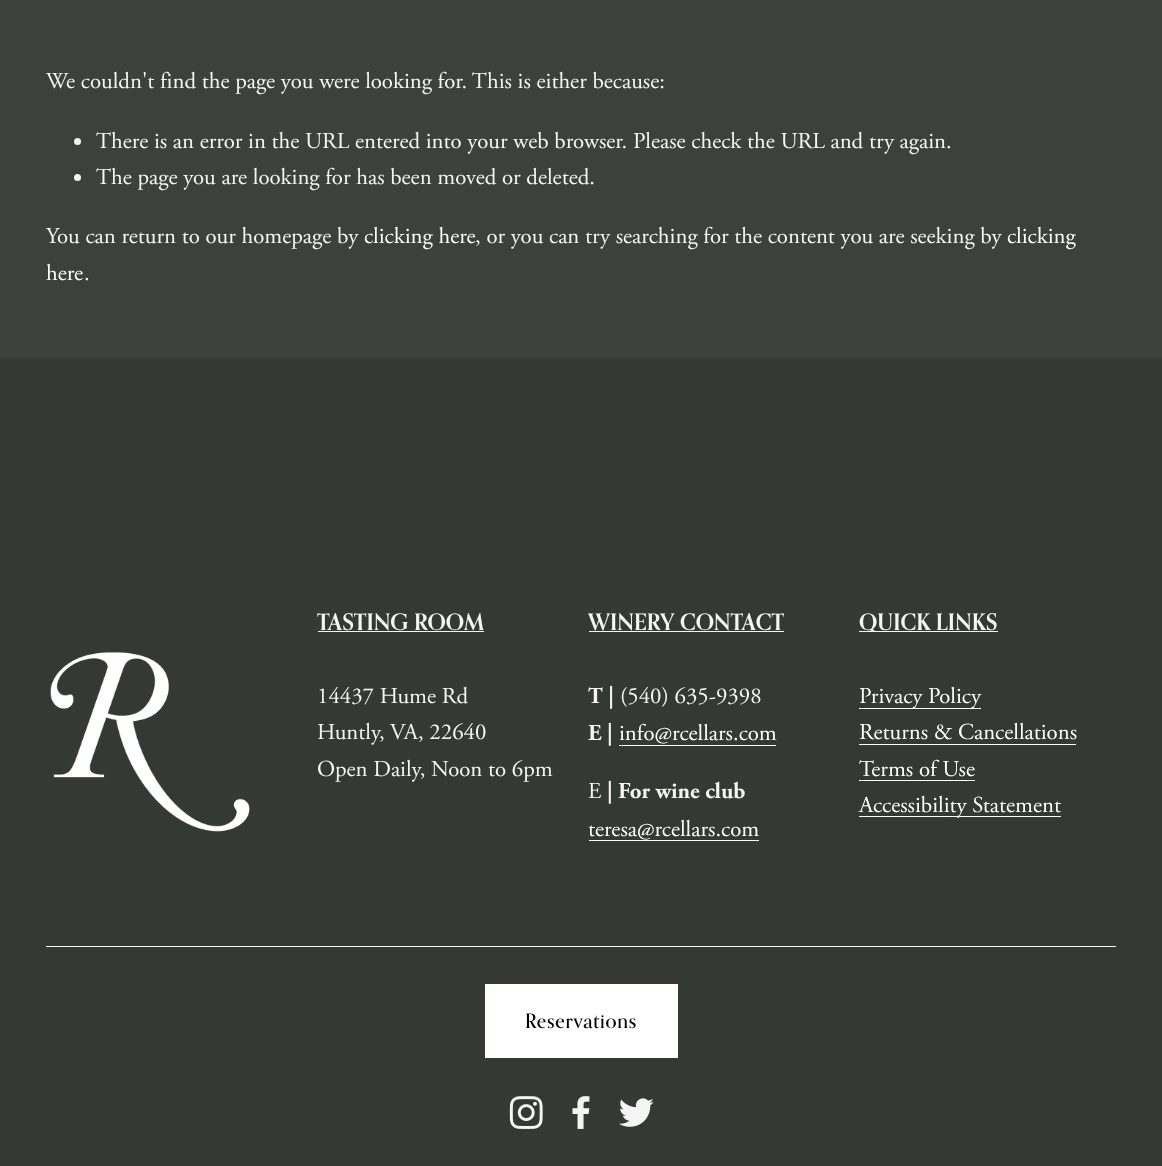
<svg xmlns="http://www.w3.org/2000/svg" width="1162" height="1166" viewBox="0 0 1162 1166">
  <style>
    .t1 { font: 22.8px Adobe Garamond; fill: #f5f5f5; }
    .t2 { font: 22.8px Adobe Garamond; fill: #fff; }
    .t3 { font: bold 22.8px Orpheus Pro; fill: #f5f5f5; }
    .t4 { font: bold 22.8px Adobe Garamond; fill: #f5f5f5; }
    .t5 { font: 500 20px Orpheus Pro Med; letter-spacing: 0.75px; fill: #000; }
  </style>
  <rect width="100%" height="100%" fill="#3d413d"/>
  <text x="46" y="88" class="t1">We couldn't find the page you were looking for. This is either because:</text>
  <circle cx="77.5" cy="141.5" r="3.5" fill="#f5f5f5"/>
  <text x="96" y="148" class="t1">There is an error in the URL entered into your web browser. Please check the URL and try again.</text>
  <circle cx="77.5" cy="177.5" r="3.5" fill="#f5f5f5"/>
  <text x="96" y="184" class="t1">The page you are looking for has been moved or deleted.</text>
  <text x="46" y="243" class="t1">You can return to our homepage by</text>
  <text x="364" y="243" class="t2">clicking here</text>
  <text x="475" y="243" class="t1">, or you can try searching for the content you are seeking by</text>
  <text x="1007" y="243" class="t2">clicking</text>
  <text x="46" y="280" class="t2">here</text>
  <text x="84" y="280" class="t1">.</text>
  <rect x="0" y="358" width="1162" height="808" fill="#353935"/>
  <image x="50" y="652" width="200" height="180" href="images/1.png"/>
  <text x="317" y="630" class="t3">TASTING ROOM</text>
  <rect x="318" y="631" width="166" height="1" fill="#f5f5f5"/>
  <text x="317" y="703" class="t1">14437 Hume Rd</text>
  <text x="317" y="739" class="t1">Huntly, VA, 22640</text>
  <text x="317" y="776" class="t1">Open Daily, Noon to 6pm</text>
  <text x="588" y="630" class="t3">WINERY CONTACT</text>
  <rect x="589" y="631" width="195" height="1" fill="#f5f5f5"/>
  <text x="588" y="703" class="t4">T |</text>
  <text x="620" y="703" class="t1">(540) 635-9398</text>
  <text x="588" y="740" class="t4">E |</text>
  <text x="619" y="740" class="t2">info@rcellars.com</text>
  <rect x="619" y="745" width="157" height="1" fill="#fff"/>
  <text x="588" y="798" class="t1">E</text>
  <text x="607" y="798" class="t4">| For wine club</text>
  <text x="588" y="836" class="t2">teresa@rcellars.com</text>
  <rect x="589" y="840" width="170" height="1" fill="#fff"/>
  <rect x="859" y="631" width="139" height="1" fill="#f5f5f5"/>
  <text x="859" y="630" class="t3">QUICK LINKS</text>
  <rect x="859" y="708" width="122" height="1" fill="#fff"/>
  <text x="859" y="703" class="t2">Privacy Policy</text>
  <text x="859" y="739" class="t2">Returns &amp; Cancellations</text>
  <rect x="859" y="744" width="217" height="1" fill="#fff"/>
  <text x="859" y="776" class="t2">Terms of Use</text>
  <rect x="859" y="780" width="116" height="1" fill="#fff"/>
  <rect x="859" y="816" width="202" height="1" fill="#fff"/>
  <text x="859" y="812" class="t2">Accessibility Statement</text>
  <rect x="46" y="946" width="1070" height="1" fill="#f5f5f5"/>
  <rect x="485" y="984" width="193" height="74" fill="#fff"/>
  <text x="525" y="1028" class="t5">Reservations</text>
  <image x="509" y="1096" width="34" height="33" href="images/2.png"/>
  <image x="572" y="1096" width="18" height="33" href="images/3.png"/>
  <image x="619" y="1098" width="35" height="29" href="images/4.png"/>
</svg>
